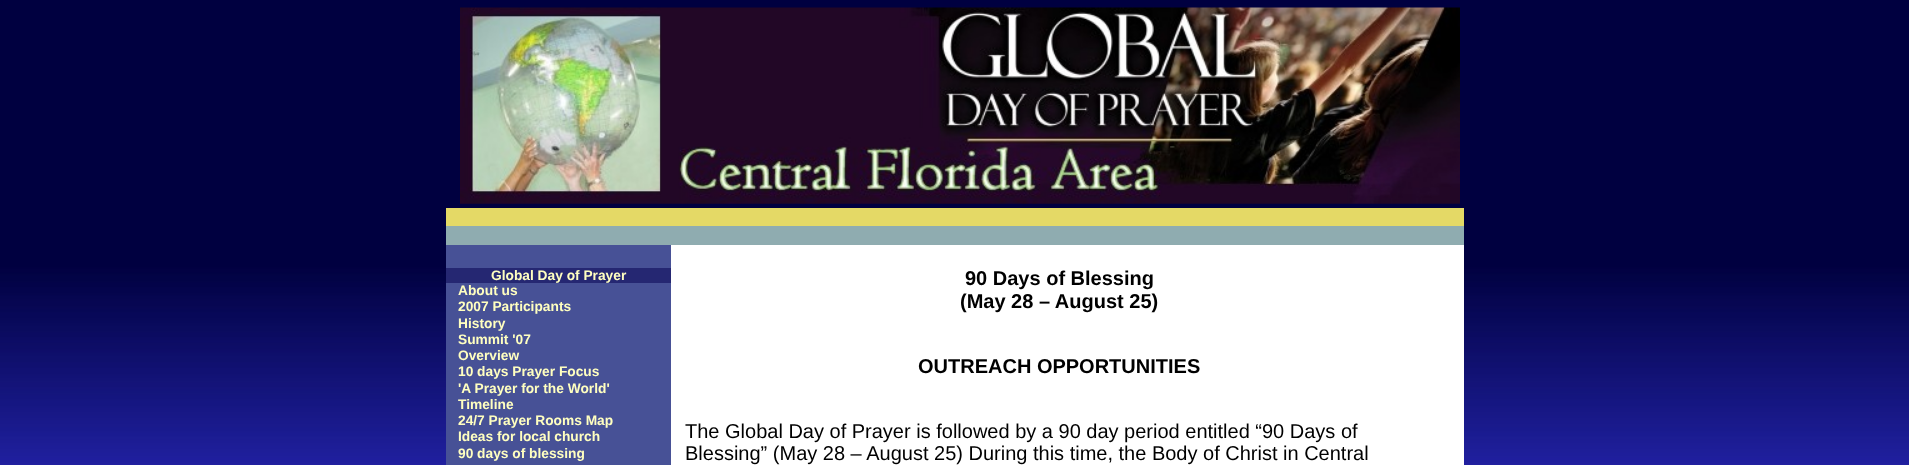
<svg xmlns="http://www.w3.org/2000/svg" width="1909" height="465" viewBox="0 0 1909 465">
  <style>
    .t1 { font: bold 13.75px Liberation Sans; fill: #ffffc0; }
    .t2 { font: bold 20px Liberation Sans; fill: #000; }
    .t3 { font: 20px Liberation Sans; fill: #000; }
  </style>
  <rect width="100%" height="100%" fill="#fff"/>
  <image x="0" y="0" width="1909" height="465" href="images/1.png"/>
  <image x="460" y="7" width="1000" height="197" href="images/2.png"/>
  <rect x="446" y="208" width="1018" height="18" fill="#e4d966"/>
  <rect x="446" y="226" width="1018" height="19" fill="#8facb0"/>
  <rect x="446" y="245" width="225" height="220" fill="#475196"/>
  <rect x="446" y="268" width="225" height="15" fill="#252772"/>
  <text x="491" y="280" class="t1">Global Day of Prayer</text>
  <text x="458" y="295" class="t1">About us</text>
  <text x="458" y="311" class="t1">2007 Participants</text>
  <text x="458" y="328" class="t1">History</text>
  <text x="458" y="344" class="t1">Summit '07</text>
  <text x="458" y="360" class="t1">Overview</text>
  <text x="458" y="376" class="t1">10 days Prayer Focus</text>
  <text x="458" y="393" class="t1">'A Prayer for the World'</text>
  <text x="458" y="409" class="t1">Timeline</text>
  <text x="458" y="425" class="t1">24/7 Prayer Rooms Map</text>
  <text x="458" y="441" class="t1">Ideas for local church</text>
  <text x="458" y="458" class="t1">90 days of blessing</text>
  <rect x="671" y="245" width="793" height="220" fill="#fff"/>
  <text x="965" y="285" class="t2">90 Days of Blessing</text>
  <text x="960" y="308" class="t2">(May 28 – August 25)</text>
  <text x="918" y="373" class="t2">OUTREACH OPPORTUNITIES</text>
  <text x="685" y="438" class="t3">The Global Day of Prayer is followed by a 90 day period entitled “90 Days of</text>
  <text x="685" y="460" class="t3">Blessing” (May 28 – August 25) During this time, the Body of Christ in Central</text>
</svg>
